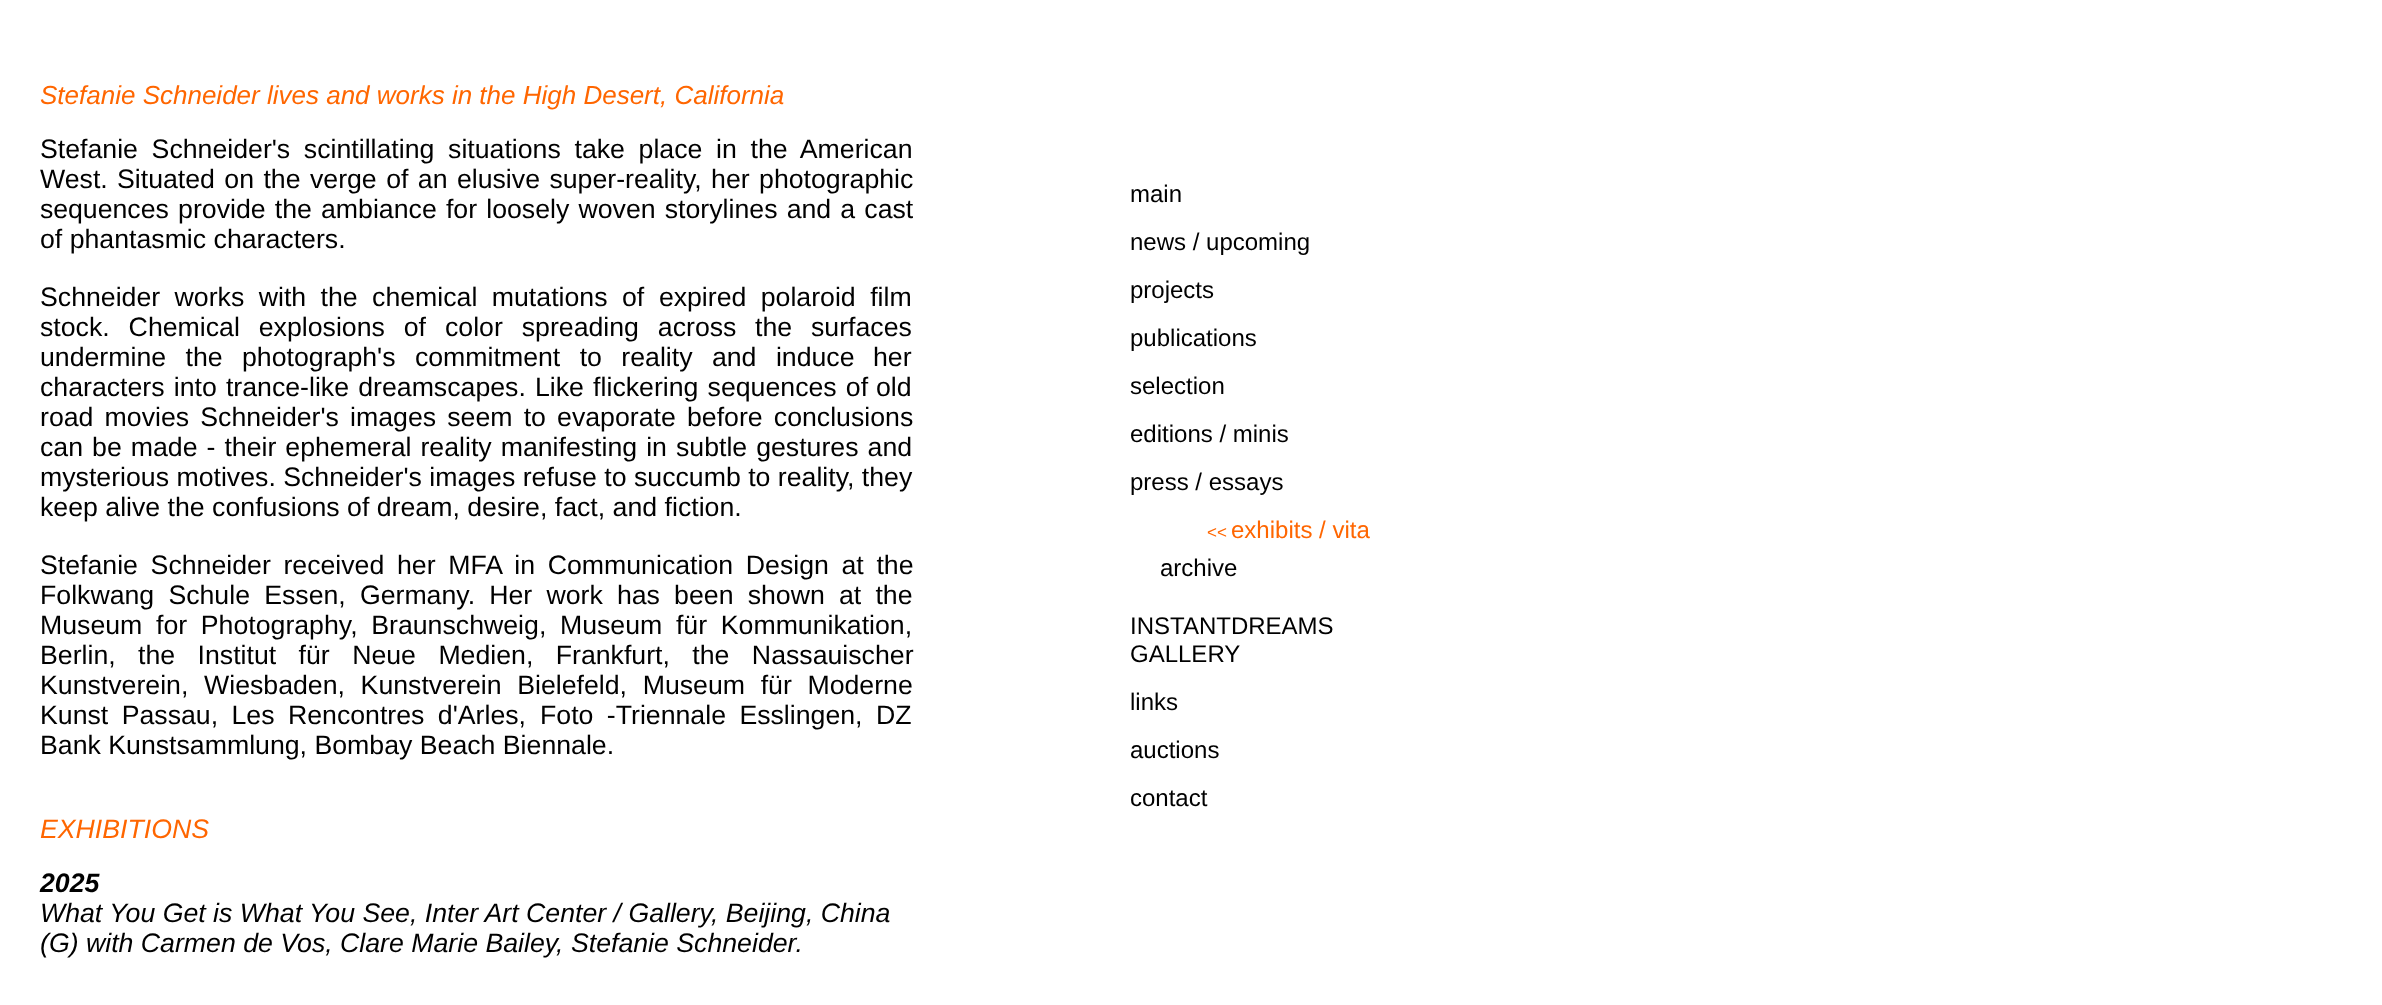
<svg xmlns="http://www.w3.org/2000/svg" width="2382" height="1005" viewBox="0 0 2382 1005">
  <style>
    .t1 { font: italic 26px Liberation Sans; fill: #f60; }
    .t2 { font: 26.7px Liberation Sans; fill: #000; }
    .t3 { font: italic 26.7px Liberation Sans; fill: #f60; }
    .t4 { font: italic bold 26.7px Liberation Sans; fill: #000; }
    .t5 { font: italic 26.7px Liberation Sans; fill: #000; }
    .t6 { font: 24px Liberation Sans; fill: #000; }
    .t7 { font: 17px Liberation Sans; fill: #f60; }
    .t8 { font: 24px Liberation Sans; fill: #f60; }
  </style>
  <rect width="100%" height="100%" fill="#fff"/>
  <text x="40" y="104" class="t1">Stefanie Schneider lives and works in the High Desert, California</text>
  <text x="40" y="158" word-spacing="6.25" class="t2">Stefanie Schneider's scintillating situations take place in the American</text>
  <text x="40" y="188" class="t2">West.</text>
  <text x="117" y="188" word-spacing="2" class="t2">Situated on the verge of an elusive super-reality, her photographic</text>
  <text x="40" y="218" class="t2">se</text>
  <text x="68" y="218" word-spacing="1.75" class="t2">quences provide the ambiance for loosely woven storylines and a cast</text>
  <text x="40" y="248" class="t2">of phantasmic characters.</text>
  <text x="40" y="306" word-spacing="7" class="t2">Schneider works with the chemical mutations of</text>
  <text x="659" y="306" class="t2">ex</text>
  <text x="687" y="306" word-spacing="7" class="t2">pired polaroid film</text>
  <text x="40" y="336" word-spacing="11.5" class="t2">stock. Chemical explosions of color spreading across</text>
  <text x="755" y="336" word-spacing="11.5" class="t2">the surfaces</text>
  <text x="40" y="366" word-spacing="12" class="t2">undermine the photograph's commitment to reality and induce</text>
  <text x="873" y="366" class="t2">her</text>
  <text x="40" y="396" word-spacing="1.75" class="t2">characters into trance-like dreamscapes. Like flickering sequences of</text>
  <text x="876" y="396" class="t2">old</text>
  <text x="40" y="426" word-spacing="3.75" class="t2">road movies Schneider's images seem to evaporate before conclusions</text>
  <text x="40" y="456" word-spacing="1.6" class="t2">can be made - their ephemeral reality manifesting in subtle gestures and</text>
  <text x="40" y="486" class="t2">mysterious motives. Schneider's images refuse to succumb to reality, they</text>
  <text x="40" y="516" class="t2">keep alive the confusions of dream, desire, fact, and fiction.</text>
  <text x="40" y="574" word-spacing="5.25" class="t2">Stefanie Schneider received her MFA in Communication Design at the</text>
  <text x="40" y="604" word-spacing="6.75" class="t2">Folkwang Schule Essen, Germany. Her work has been shown at the</text>
  <text x="40" y="634" word-spacing="6.25" class="t2">Museum for Photography, Braunschweig, Museum für Kommunikation,</text>
  <text x="40" y="664" word-spacing="15" class="t2">Berlin, the Institut für Neue Medien, Frankfurt, the Nassauischer</text>
  <text x="40" y="694" word-spacing="8.25" class="t2">Kunstverein, Wiesbaden, Kunstverein Bielefeld, Museum für Moderne</text>
  <text x="40" y="724" word-spacing="6" class="t2">Kunst Passau, Les Rencontres d'Arles,</text>
  <text x="540" y="724" word-spacing="6" class="t2">Foto -Triennale Esslingen</text>
  <text x="855" y="724" word-spacing="6.25" class="t2">, DZ</text>
  <text x="40" y="754" class="t2">Bank Kunstsammlung, Bombay Beach Biennale.</text>
  <text x="40" y="838" class="t3">EXHIBITIONS</text>
  <text x="40" y="892" class="t4">2025</text>
  <text x="40" y="922" class="t5">What You Get is What You See, Inter Art Center / Gallery, Beijing, China</text>
  <text x="40" y="952" class="t5">(G) with Carmen de Vos, Clare Marie Bailey, Stefanie Schneider.</text>
  <text x="1130" y="202" class="t6">main</text>
  <text x="1130" y="250" class="t6">news / upcoming</text>
  <text x="1130" y="298" class="t6">projects</text>
  <text x="1130" y="346" class="t6">publications</text>
  <text x="1130" y="394" class="t6">selection</text>
  <text x="1130" y="442" class="t6">editions / minis</text>
  <text x="1130" y="490" class="t6">press / essays</text>
  <text x="1207" y="538" class="t7">&lt;&lt;</text>
  <text x="1231" y="538" class="t8">exhibits / vita</text>
  <text x="1160" y="576" class="t6">archive</text>
  <text x="1130" y="634" class="t6">INSTANTDREAMS</text>
  <text x="1130" y="662" class="t6">GALLERY</text>
  <text x="1130" y="710" class="t6">links</text>
  <text x="1130" y="758" class="t6">auctions</text>
  <text x="1130" y="806" class="t6">contact</text>
</svg>
